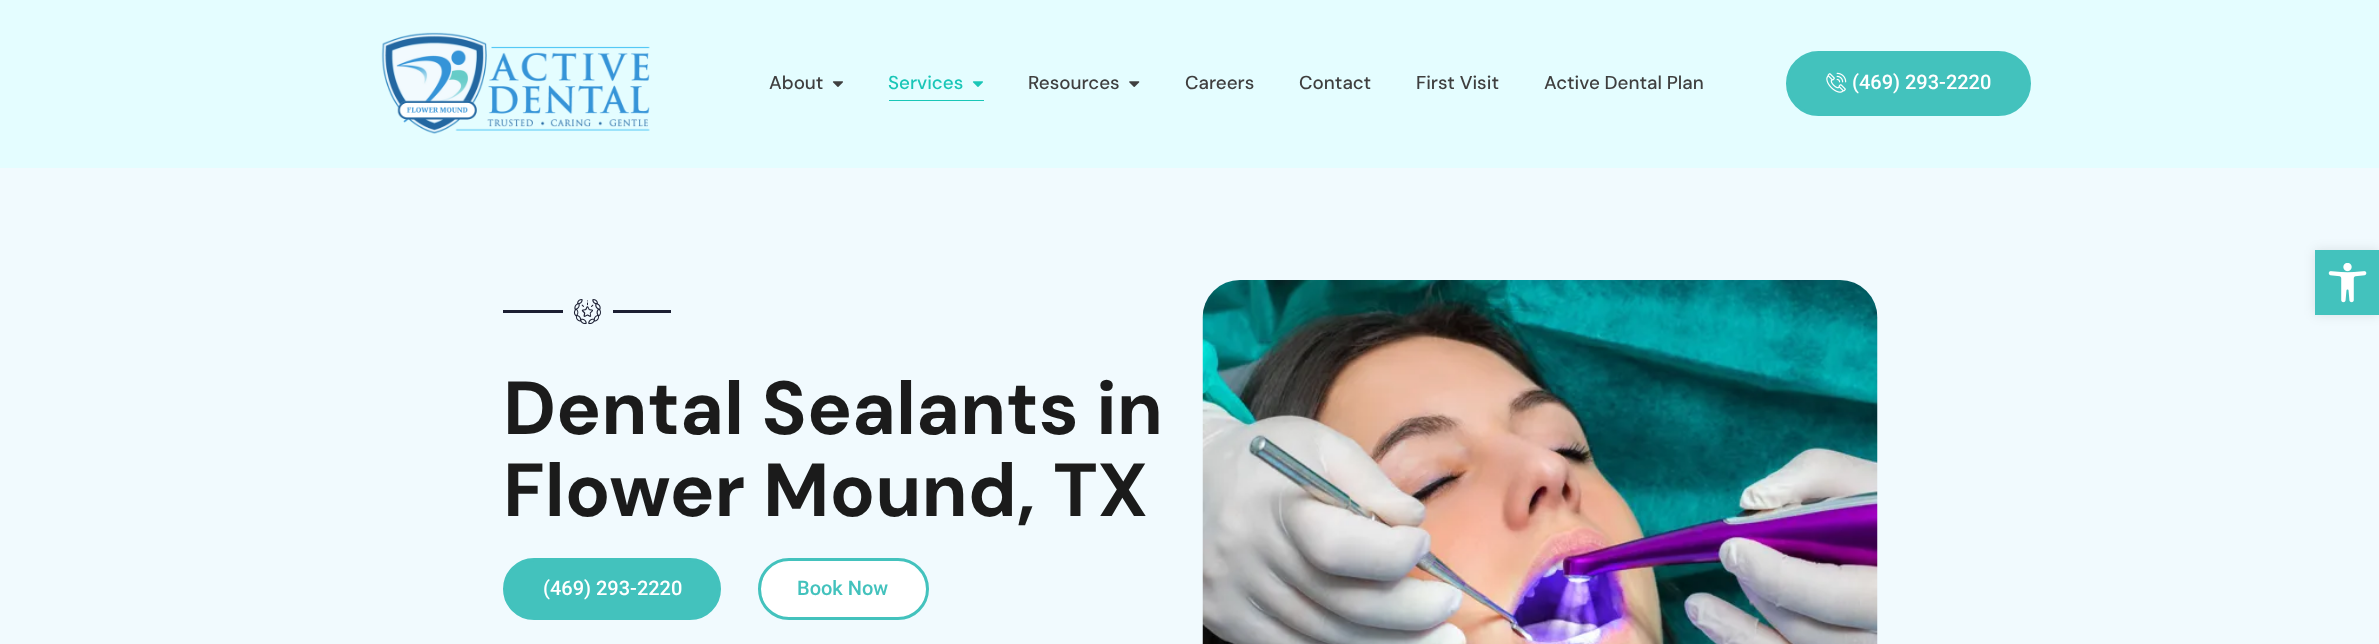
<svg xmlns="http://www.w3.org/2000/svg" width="2379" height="644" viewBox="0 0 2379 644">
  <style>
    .t1 { font: 500 18.75px DM Sans; fill: #3f3f3f; }
    .t2 { font: 500 18.75px DM Sans; fill: #19c6b7; }
    .t3 { font: 500 20px Roboto; fill: #fff; }
    .t4 { font: bold 75px DM Sans; fill: #1b1b1b; }
    .t5 { font: 500 20px Roboto; fill: #43c2bd; }
  </style>
  <rect width="100%" height="100%" fill="#f1fafe"/>
  <rect x="0" y="0" width="2379" height="168" fill="#e4fdff"/>
  <image x="381" y="32" width="269" height="102" href="images/1.png"/>
  <text x="769" y="89" class="t1">About</text>
  <image x="832" y="81" width="11" height="6" href="images/2.png"/>
  <text x="888" y="89" class="t2">Services</text>
  <image x="972" y="81" width="11" height="6" href="images/3.png"/>
  <rect x="889" y="100" width="95" height="1" fill="#19c6b7"/>
  <text x="1028" y="89" class="t1">Resources</text>
  <image x="1129" y="81" width="11" height="6" href="images/4.png"/>
  <text x="1185" y="89" class="t1">Careers</text>
  <text x="1299" y="89" class="t1">Contact</text>
  <text x="1416" y="89" class="t1">First Visit</text>
  <text x="1544" y="89" class="t1">Active Dental Plan</text>
  <rect x="1787.5" y="52.5" width="242" height="62" rx="31" fill="#43c2bd" stroke="#43c2bd" stroke-width="3"/>
  <image x="1826" y="72" width="21" height="21" href="images/5.png"/>
  <text x="1852" y="89" class="t3">(469) 293-2220</text>
  <rect x="503" y="310" width="60" height="3" fill="#1c1f33"/>
  <image x="573" y="299" width="28" height="26" href="images/6.png"/>
  <rect x="613" y="310" width="58" height="3" fill="#1c1f33"/>
  <text x="503" y="434" class="t4">Dental Sealants in</text>
  <text x="503" y="516" class="t4">Flower Mound, TX</text>
  <rect x="504.5" y="559.5" width="215" height="59" rx="29.5" fill="#43c2bd" stroke="#43c2bd" stroke-width="3"/>
  <text x="543" y="595" class="t3">(469) 293-2220</text>
  <rect x="759.5" y="559.5" width="168" height="59" rx="29.5" fill="#fff" stroke="#43c2bd" stroke-width="3"/>
  <text x="797" y="595" class="t5">Book Now</text>
  <image x="1202" y="280" width="676" height="364" href="images/7.png"/>
  <rect x="2315" y="250" width="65" height="65" fill="#0000001a" filter="blur(6px)"/>
  <rect x="2315" y="250" width="64" height="65" fill="#43c2bd"/>
  <image x="2328" y="263" width="39" height="40" href="images/8.png"/>
</svg>
